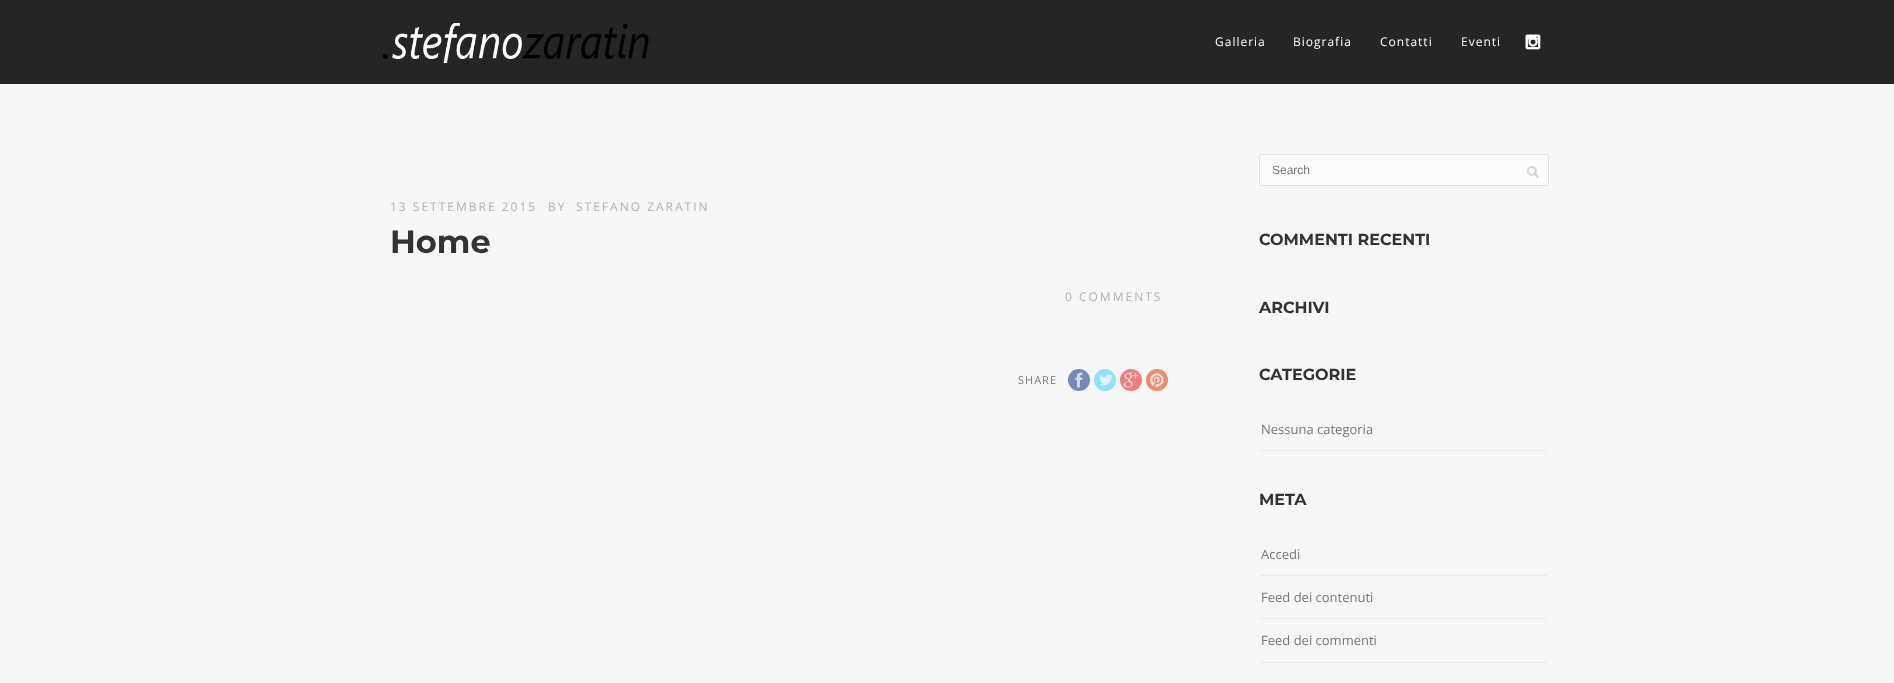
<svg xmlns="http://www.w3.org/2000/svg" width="1894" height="683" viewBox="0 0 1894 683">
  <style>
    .t1 { font: 12px Open Sans; letter-spacing: 1px; fill: #fff; }
    .t2 { font: 12px Open Sans; letter-spacing: 2px; fill: #b3b3b1; }
    .t3 { font: bold 32px Montserrat; fill: #333332; }
    .t4 { font: 11px Open Sans; letter-spacing: 1px; fill: #777; }
    .t5 { font: 12px Liberation Sans; fill: #777; }
    .t6 { font: bold 16px Montserrat; fill: #333332; }
    .t7 { font: 13px Open Sans; fill: #777; }
  </style>
  <rect width="100%" height="100%" fill="#f7f7f7"/>
  <rect x="0" y="0" width="1894" height="84" fill="#252525"/>
  <image x="383" y="23" width="266" height="40" href="images/1.png"/>
  <text x="1215" y="46" class="t1">Galleria</text>
  <text x="1293" y="46" class="t1">Biografia</text>
  <text x="1380" y="46" class="t1">Contatti</text>
  <text x="1461" y="46" class="t1">Eventi</text>
  <image x="1525" y="34" width="16" height="16" href="images/2.png"/>
  <text x="390" y="211" class="t2">13 SETTEMBRE 2015</text>
  <text x="548" y="211" class="t2">BY</text>
  <text x="576" y="211" class="t2">STEFANO ZARATIN</text>
  <text x="390" y="253" class="t3">Home</text>
  <text x="1065" y="301" class="t2">0 COMMENTS</text>
  <text x="1018" y="384" class="t4">SHARE</text>
  <circle cx="1079" cy="380" r="11" fill="#7588b7"/>
  <image x="1075" y="372" width="8" height="16" href="images/3.png"/>
  <circle cx="1105" cy="380" r="11" fill="#8de1fb"/>
  <image x="1099" y="374" width="14" height="12" href="images/4.png"/>
  <circle cx="1131" cy="380" r="11" fill="#ea7e81"/>
  <image x="1123" y="372" width="16" height="16" href="images/5.png"/>
  <circle cx="1157" cy="380" r="11" fill="#ed8b73"/>
  <image x="1150" y="373" width="14" height="14" href="images/6.png"/>
  <rect x="1259.5" y="154.5" width="289" height="31" rx="1.5" fill="#fcfcfc" stroke="#e3e3e3"/>
  <text x="1272" y="174" class="t5">Search</text>
  <image x="1527" y="166" width="12" height="12" href="images/7.png"/>
  <text x="1259" y="245" class="t6">COMMENTI RECENTI</text>
  <text x="1259" y="313" class="t6">ARCHIVI</text>
  <text x="1259" y="380" class="t6">CATEGORIE</text>
  <rect x="1259" y="450" width="288" height="1" fill="#ebebeb"/>
  <text x="1261" y="434" class="t7">Nessuna categoria</text>
  <text x="1259" y="505" class="t6">META</text>
  <rect x="1259" y="575" width="288" height="1" fill="#ebebeb"/>
  <text x="1261" y="559" class="t7">Accedi</text>
  <rect x="1259" y="618" width="288" height="1" fill="#ebebeb"/>
  <text x="1261" y="602" class="t7">Feed dei contenuti</text>
  <rect x="1259" y="662" width="288" height="1" fill="#ebebeb"/>
  <text x="1261" y="645" class="t7">Feed dei commenti</text>
</svg>
